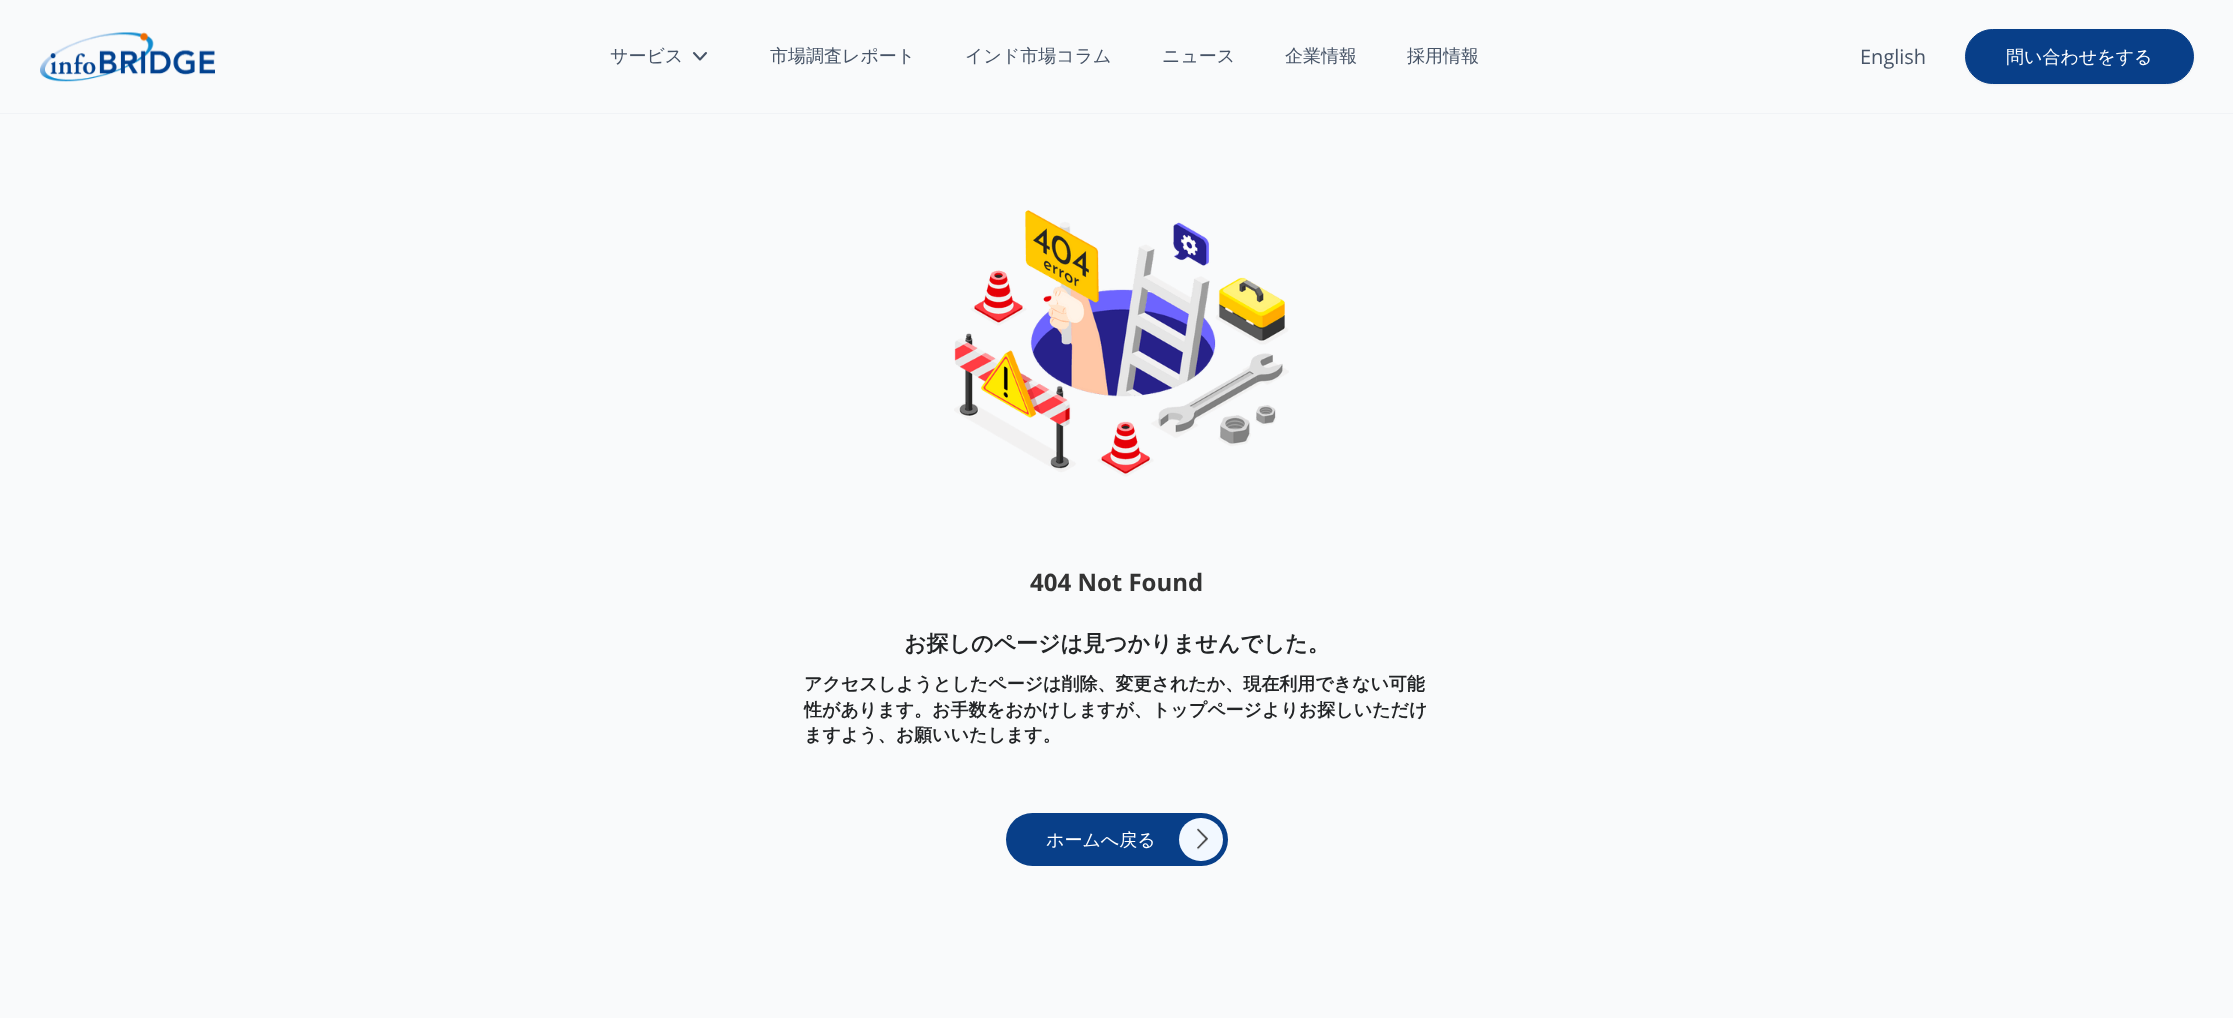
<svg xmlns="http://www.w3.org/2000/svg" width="2233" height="1018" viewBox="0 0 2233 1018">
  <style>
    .t1 { font: 500 18px WenQuanYi Zen Hei; fill: #475467; }
    .t2 { font: 20px Open Sans; fill: #475467; }
    .t3 { font: 500 18px WenQuanYi Zen Hei; fill: #fff; }
    .t4 { font: bold 24px Open Sans; fill: #333; }
    .t5 { font: bold 22px WenQuanYi Zen Hei; fill: #222426; }
    .t6 { font: bold 18px WenQuanYi Zen Hei; fill: #222426; }
  </style>
  <rect width="100%" height="100%" fill="#f9fafb"/>
  <image x="40" y="32" width="175" height="50" href="images/1.png"/>
  <text x="610" y="62" class="t1">サービス</text>
  <path d="M694 53L700 59.5L706 53" fill="none" stroke="#475467" stroke-width="2.1" stroke-linecap="round" stroke-linejoin="round"/>
  <text x="770" y="62" class="t1">市場調査レポート</text>
  <text x="965" y="62" class="t1">インド市場コラム</text>
  <text x="1162" y="62" class="t1">ニュース</text>
  <text x="1285" y="62" class="t1">企業情報</text>
  <text x="1407" y="62" class="t1">採用情報</text>
  <text x="1860" y="64" class="t2">English</text>
  <rect x="1965" y="30" width="229" height="55" rx="27.5" fill="#1018280d" filter="blur(1px)"/>
  <rect x="1965.5" y="29.5" width="228" height="54" rx="27" fill="#083f89" stroke="#083f89"/>
  <text x="2006" y="63" class="t3">問い合わせをする</text>
  <rect x="0" y="113" width="2233" height="1" fill="#f1f3f6"/>
  <image x="954" y="210" width="335" height="267" href="images/2.png"/>
  <text x="1030" y="591" class="t4">404 Not Found</text>
  <text x="904" y="651" class="t5">お探しのページは見つかりませんでした。</text>
  <text x="804" y="690" class="t6">アクセスしようとしたページは削除、変更されたか、現在利用できない可能</text>
  <text x="804" y="716" class="t6">性があります。お手数をおかけしますが、トップページよりお探しいただけ</text>
  <text x="804" y="741" class="t6">ますよう、お願いいたします。</text>
  <rect x="1006" y="813" width="222" height="53" rx="26.5" fill="#083f89"/>
  <text x="1046" y="846" class="t3">ホームへ戻る</text>
  <rect x="1179" y="818" width="44" height="43" rx="21.5" fill="#f2f8ff"/>
  <image x="1197" y="828" width="11" height="22" href="images/3.png"/>
</svg>
